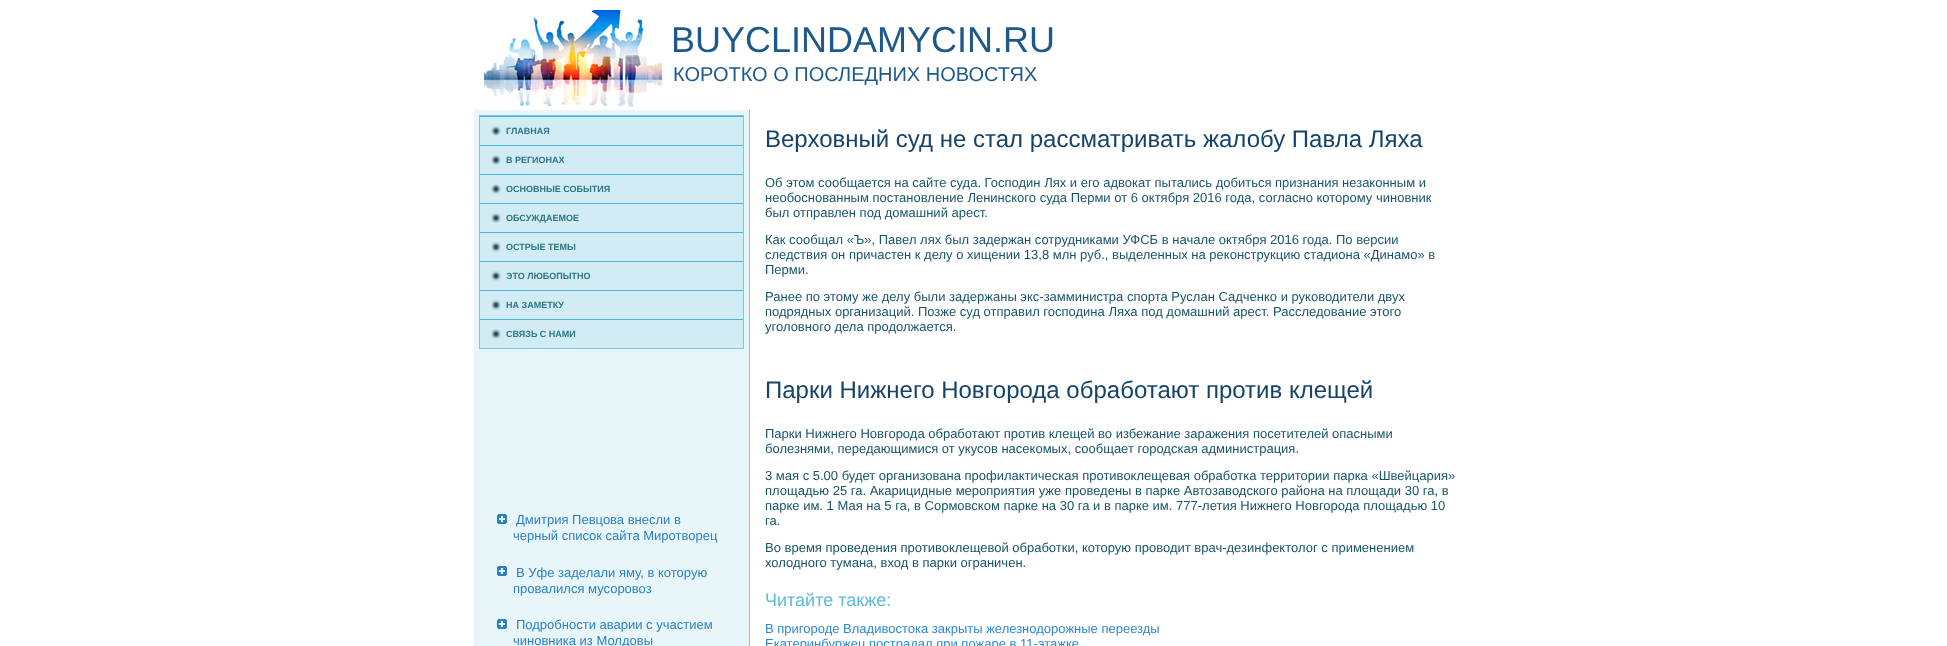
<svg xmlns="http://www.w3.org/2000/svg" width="1947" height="646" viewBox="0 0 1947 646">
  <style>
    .t1 { font: 36px Liberation Sans; fill: #1d5a8b; }
    .t2 { font: 20px Liberation Sans; fill: #1d5a8b; }
    .t3 { font: bold 9px Liberation Sans; fill: #2e7684; }
    .t4 { font: 13px Liberation Sans; fill: #2a80c6; }
    .t5 { font: 24px Liberation Sans; fill: #164469; }
    .t6 { font: 13px Liberation Sans; fill: #185468; }
    .t7 { font: 18px Liberation Sans; fill: #5dbbda; }
    .t8 { font: 13px Liberation Sans; fill: #2d88d2; }
  </style>
  <rect width="100%" height="100%" fill="#fff"/>
  <image x="484" y="10" width="179" height="97" href="images/1.png"/>
  <text x="671" y="52" class="t1">BUYCLINDAMYCIN.RU</text>
  <text x="673" y="81" class="t2">КОРОТКО О ПОСЛЕДНИХ НОВОСТЯХ</text>
  <rect x="474" y="110" width="275" height="536" fill="#e8f6fa"/>
  <rect x="749" y="110" width="1" height="536" fill="#7ac7e1"/>
  <rect x="480" y="117" width="263" height="231" fill="#d1ecf5"/>
  <rect x="479.5" y="115.5" width="264" height="233" fill="none" stroke="#7ac7e1"/>
  <rect x="480" y="116" width="263" height="1" fill="#50b6d7"/>
  <image x="491" y="126" width="10" height="10" href="images/2.png"/>
  <text x="506" y="134" class="t3">ГЛАВНАЯ</text>
  <rect x="480" y="145" width="263" height="1" fill="#50b6d7"/>
  <image x="491" y="155" width="10" height="10" href="images/2.png"/>
  <text x="506" y="163" class="t3">В РЕГИОНАХ</text>
  <rect x="480" y="174" width="263" height="1" fill="#50b6d7"/>
  <image x="491" y="184" width="10" height="10" href="images/2.png"/>
  <text x="506" y="192" class="t3">ОСНОВНЫЕ СОБЫТИЯ</text>
  <rect x="480" y="203" width="263" height="1" fill="#50b6d7"/>
  <image x="491" y="213" width="10" height="10" href="images/2.png"/>
  <text x="506" y="221" class="t3">ОБСУЖДАЕМОЕ</text>
  <rect x="480" y="232" width="263" height="1" fill="#50b6d7"/>
  <image x="491" y="242" width="10" height="10" href="images/2.png"/>
  <text x="506" y="250" class="t3">ОСТРЫЕ ТЕМЫ</text>
  <rect x="480" y="261" width="263" height="1" fill="#50b6d7"/>
  <image x="491" y="271" width="10" height="10" href="images/2.png"/>
  <text x="506" y="279" class="t3">ЭТО ЛЮБОПЫТНО</text>
  <rect x="480" y="290" width="263" height="1" fill="#50b6d7"/>
  <image x="491" y="300" width="10" height="10" href="images/2.png"/>
  <text x="506" y="308" class="t3">НА ЗАМЕТКУ</text>
  <rect x="480" y="319" width="263" height="1" fill="#50b6d7"/>
  <image x="491" y="329" width="10" height="10" href="images/2.png"/>
  <text x="506" y="337" class="t3">СВЯЗЬ С НАМИ</text>
  <image x="497" y="514" width="10" height="10" href="images/3.png"/>
  <text x="516" y="524" class="t4">Дмитрия Певцова внесли в</text>
  <text x="513" y="540" class="t4">черный список сайта Миротворец</text>
  <image x="497" y="566" width="10" height="10" href="images/3.png"/>
  <text x="516" y="577" class="t4">В Уфе заделали яму, в которую</text>
  <text x="513" y="593" class="t4">провалился мусоровоз</text>
  <image x="497" y="619" width="10" height="10" href="images/3.png"/>
  <text x="516" y="629" class="t4">Подробности аварии с участием</text>
  <text x="513" y="645" class="t4">чиновника из Молдовы</text>
  <text x="765" y="147" class="t5">Верховный суд не стал рассматривать жалобу Павла Ляха</text>
  <text x="765" y="187" class="t6">Об этом сообщается на сайте суда. Господин Лях и его адвокат пытались добиться признания незаконным и</text>
  <text x="765" y="202" class="t6">необоснованным постановление Ленинского суда Перми от 6 октября 2016 года, согласно которому чиновник</text>
  <text x="765" y="217" class="t6">был отправлен под домашний арест.</text>
  <text x="765" y="244" class="t6">Как сообщал «Ъ», Павел лях был задержан сотрудниками УФСБ в начале октября 2016 года. По версии</text>
  <text x="765" y="259" class="t6">следствия он причастен к делу о хищении 13,8 млн руб., выделенных на реконструкцию стадиона «Динамо» в</text>
  <text x="765" y="274" class="t6">Перми.</text>
  <text x="765" y="301" class="t6">Ранее по этому же делу были задержаны экс-замминистра спорта Руслан Садченко и руководители двух</text>
  <text x="765" y="316" class="t6">подрядных организаций. Позже суд отправил господина Ляха под домашний арест. Расследование этого</text>
  <text x="765" y="331" class="t6">уголовного дела продолжается.</text>
  <text x="765" y="398" class="t5">Парки Нижнего Новгорода обработают против клещей</text>
  <text x="765" y="438" class="t6">Парки Нижнего Новгорода обработают против клещей во избежание заражения посетителей опасными</text>
  <text x="765" y="453" class="t6">болезнями, передающимися от укусов насекомых, сообщает городская администрация.</text>
  <text x="765" y="480" class="t6">3 мая с 5.00 будет организована профилактическая противоклещевая обработка территории парка «Швейцария»</text>
  <text x="765" y="495" class="t6">площадью 25 га. Акарицидные мероприятия уже проведены в парке Автозаводского района на площади 30 га, в</text>
  <text x="765" y="510" class="t6">парке им. 1 Мая на 5 га, в Сормовском парке на 30 га и в парке им. 777-летия Нижнего Новгорода площадью 10</text>
  <text x="765" y="525" class="t6">га.</text>
  <text x="765" y="552" class="t6">Во время проведения противоклещевой обработки, которую проводит врач-дезинфектолог с применением</text>
  <text x="765" y="567" class="t6">холодного тумана, вход в парки ограничен.</text>
  <text x="765" y="606" class="t7">Читайте также:</text>
  <text x="765" y="633" class="t8">В пригороде Владивостока закрыты железнодорожные переезды</text>
  <text x="765" y="648" class="t8">Екатеринбуржец пострадал при пожаре в 11-этажке</text>
</svg>
